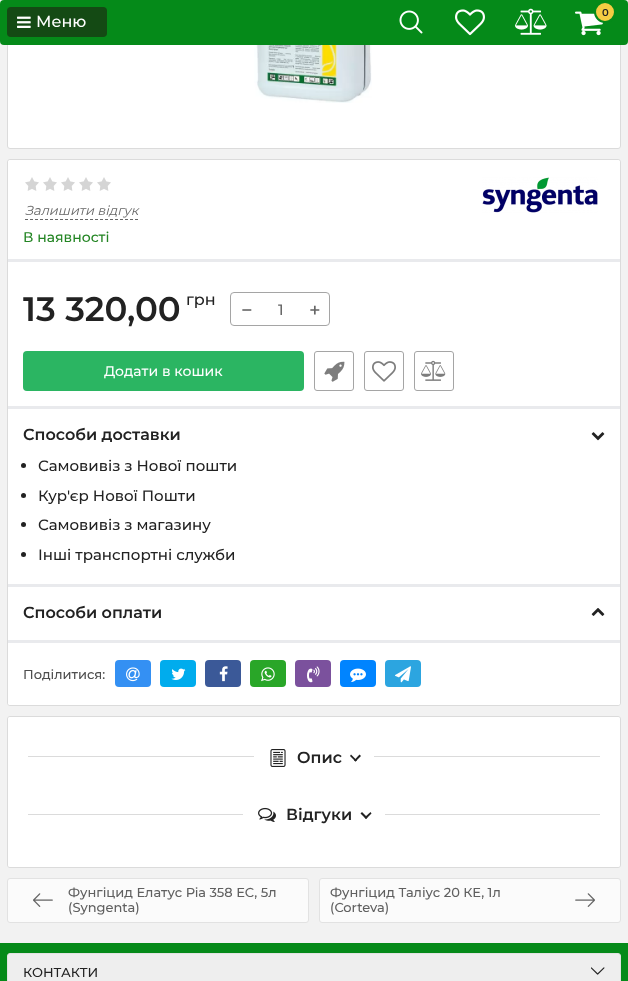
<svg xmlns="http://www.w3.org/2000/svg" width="628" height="981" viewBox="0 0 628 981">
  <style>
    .t1 { font: 600 10px Montserrat; fill: #222; }
    .t2 { font: 500 16px Montserrat; fill: #fff; }
    .t3 { font: italic 13px Montserrat; fill: #666; }
    .t4 { font: 500 14px Montserrat; fill: #238523; }
    .t5 { font: 600 34px Montserrat; fill: #222; }
    .t6 { font: 500 16px Montserrat; fill: #222; }
    .t7 { font: 500 20px Montserrat; fill: #666; }
    .t8 { font: 500 15px Montserrat; fill: #666; }
    .t9 { font: 500 14px Montserrat; fill: #fff; }
    .t10 { font: 600 16px Montserrat; fill: #222; }
    .t11 { font: 500 15px Montserrat; fill: #222; }
    .t12 { font: 500 13px Montserrat; fill: #4e4e4e; }
    .t13 { font: 500 13px Montserrat; fill: #606060; }
    .t14 { font: 500 13px Montserrat; fill: #222; }
  </style>
  <rect width="100%" height="100%" fill="#f2f2f2"/>
  <rect x="7.5" y="-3.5" width="613" height="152" rx="2.5" fill="#fff" stroke="#dbdbdb"/>
  <rect x="0" y="0" width="628" height="45" rx="4" fill="#058a19"/>
  <image x="399" y="10" width="24" height="24" href="images/1.png"/>
  <image x="455" y="9" width="30" height="27" href="images/2.png"/>
  <image x="515" y="8" width="32" height="27" href="images/3.png"/>
  <image x="575" y="11" width="28" height="25" href="images/4.png"/>
  <circle cx="605" cy="12" r="10" fill="#f5cc43" stroke="#058a19" stroke-width="2"/>
  <text x="602" y="16" class="t1">0</text>
  <rect x="7" y="7" width="100" height="30" rx="4" fill="#144a14"/>
  <image x="17" y="16" width="14" height="12" href="images/5.png"/>
  <text x="36" y="27" class="t2">Меню</text>
  <image x="254" y="45" width="118" height="58" href="images/6.png"/>
  <rect x="7.5" y="159.5" width="613" height="546" rx="2.5" fill="#fff" stroke="#dbdbdb"/>
  <path d="M10 160H618C619 160 620 161 620 162V262H8V162C8 161 9 160 10 160Z" fill="#fff"/>
  <rect x="8" y="259" width="612" height="3" fill="#e9eaed"/>
  <image x="25" y="177" width="86" height="14" href="images/7.png"/>
  <image x="482" y="177" width="116" height="36" href="images/8.png"/>
  <path d="M25 219.5H138" fill="none" stroke="#666" stroke-dasharray="3 2"/>
  <text x="25" y="215" class="t3">Залишити відгук</text>
  <text x="23" y="242" class="t4">В наявності</text>
  <rect x="8" y="406" width="612" height="3" fill="#e9eaed"/>
  <text x="23" y="321" class="t5">13 320,00</text>
  <text x="186" y="305" class="t6">грн</text>
  <rect x="230.5" y="292.5" width="99" height="33" rx="3.5" fill="none" stroke="#a5a5a5"/>
  <text x="241" y="317" class="t7">−</text>
  <text x="278" y="315" class="t8">1</text>
  <text x="309" y="317" class="t7">+</text>
  <rect x="23" y="351" width="281" height="40" rx="4" fill="#2bb562"/>
  <text x="104" y="376" class="t9">Додати в кошик</text>
  <rect x="314.5" y="351.5" width="39" height="39" rx="2.5" fill="none" stroke="#a5a5a5"/>
  <image x="324" y="361" width="21" height="21" href="images/9.png"/>
  <rect x="364.5" y="351.5" width="39" height="39" rx="2.5" fill="none" stroke="#a5a5a5"/>
  <image x="372" y="361" width="24" height="21" href="images/10.png"/>
  <rect x="414.5" y="351.5" width="39" height="39" rx="2.5" fill="none" stroke="#a5a5a5"/>
  <image x="421" y="360" width="25" height="21" href="images/11.png"/>
  <rect x="8" y="640" width="612" height="3" fill="#e9eaed"/>
  <rect x="8" y="584" width="612" height="3" fill="#e9eaed"/>
  <text x="23" y="440" class="t10">Способи доставки</text>
  <image x="591" y="432" width="14" height="9" href="images/12.png"/>
  <circle cx="23.5" cy="465.5" r="2.5" fill="#222"/>
  <text x="38" y="471" class="t11">Самовивіз з Нової пошти</text>
  <circle cx="23.5" cy="495.5" r="2.5" fill="#222"/>
  <text x="38" y="501" class="t11">Кур'єр Нової Пошти</text>
  <circle cx="23.5" cy="524.5" r="2.5" fill="#222"/>
  <text x="38" y="530" class="t11">Самовивіз з магазину</text>
  <circle cx="23.5" cy="554.5" r="2.5" fill="#222"/>
  <text x="38" y="560" class="t11">Інші транспортні служби</text>
  <text x="23" y="618" class="t10">Способи оплати</text>
  <image x="591" y="608" width="14" height="8" href="images/13.png"/>
  <path d="M8 643H620V703C620 704 619 705 618 705H10C9 705 8 704 8 703Z" fill="#fff"/>
  <text x="23" y="679" class="t12">Поділитися:</text>
  <rect x="115" y="660" width="36" height="27" rx="4" fill="#3490f3"/>
  <image x="126" y="667" width="14" height="15" href="images/14.png"/>
  <rect x="160" y="660" width="36" height="27" rx="4" fill="#00aced"/>
  <image x="171" y="668" width="15" height="12" href="images/15.png"/>
  <rect x="205" y="660" width="36" height="27" rx="4" fill="#3b5998"/>
  <image x="219" y="666" width="9" height="16" href="images/16.png"/>
  <rect x="250" y="660" width="36" height="27" rx="4" fill="#29a628"/>
  <image x="261" y="667" width="14" height="15" href="images/17.png"/>
  <rect x="295" y="660" width="36" height="27" rx="4" fill="#7b519d"/>
  <image x="307" y="666" width="13" height="17" href="images/18.png"/>
  <rect x="340" y="660" width="36" height="27" rx="4" fill="#0084ff"/>
  <image x="350" y="668" width="16" height="14" href="images/19.png"/>
  <rect x="385" y="660" width="36" height="27" rx="4" fill="#2ca5e0"/>
  <image x="395" y="666" width="16" height="17" href="images/20.png"/>
  <rect x="7.5" y="716.5" width="613" height="151" rx="2.5" fill="none" stroke="#dbdbdb"/>
  <rect x="8" y="717" width="612" height="150" rx="2" fill="#fff"/>
  <rect x="28" y="756" width="572" height="1" fill="#dbdbdb"/>
  <rect x="254" y="756" width="120" height="1" fill="#fff"/>
  <image x="270" y="749" width="16" height="18" href="images/21.png"/>
  <text x="297" y="763" class="t10">Опис</text>
  <path d="M359.5 754.5L361 756L355.5 761.5L354 760.5Z" fill="#222"/>
  <path d="M351 754.5L357 760.5L355.5 761.5L350 756Z" fill="#222"/>
  <rect x="28" y="814" width="572" height="1" fill="#dbdbdb"/>
  <rect x="243" y="814" width="142" height="1" fill="#fff"/>
  <image x="258" y="807" width="18" height="15" href="images/22.png"/>
  <text x="286" y="820" class="t10">Відгуки</text>
  <path d="M370.5 812L371.5 813.5L366 819L364.5 817.5Z" fill="#222"/>
  <path d="M362 812L367.5 817.5L366 819L360.5 813.5Z" fill="#222"/>
  <rect x="7.5" y="878.5" width="301" height="44" rx="2.5" fill="#fbfbfb" stroke="#e2e2e2"/>
  <image x="33" y="893" width="20" height="14" href="images/23.png"/>
  <text x="68" y="897" class="t13">Фунгіцид Елатус Ріа 358 ЕС, 5л</text>
  <text x="68" y="912" class="t13">(Syngenta)</text>
  <rect x="319.5" y="878.5" width="301" height="44" rx="2.5" fill="#fbfbfb" stroke="#e2e2e2"/>
  <text x="330" y="897" class="t13">Фунгіцид Таліус 20 КЕ, 1л</text>
  <text x="330" y="912" class="t13">(Corteva)</text>
  <image x="575" y="893" width="20" height="14" href="images/24.png"/>
  <rect x="0" y="943" width="628" height="38" fill="#058a19"/>
  <rect x="7.5" y="953.5" width="613" height="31" rx="2.5" fill="#eee" stroke="#e2e2e2"/>
  <text x="23" y="977" class="t14">КОНТАКТИ</text>
  <image x="591" y="967" width="14" height="8" href="images/25.png"/>
</svg>
